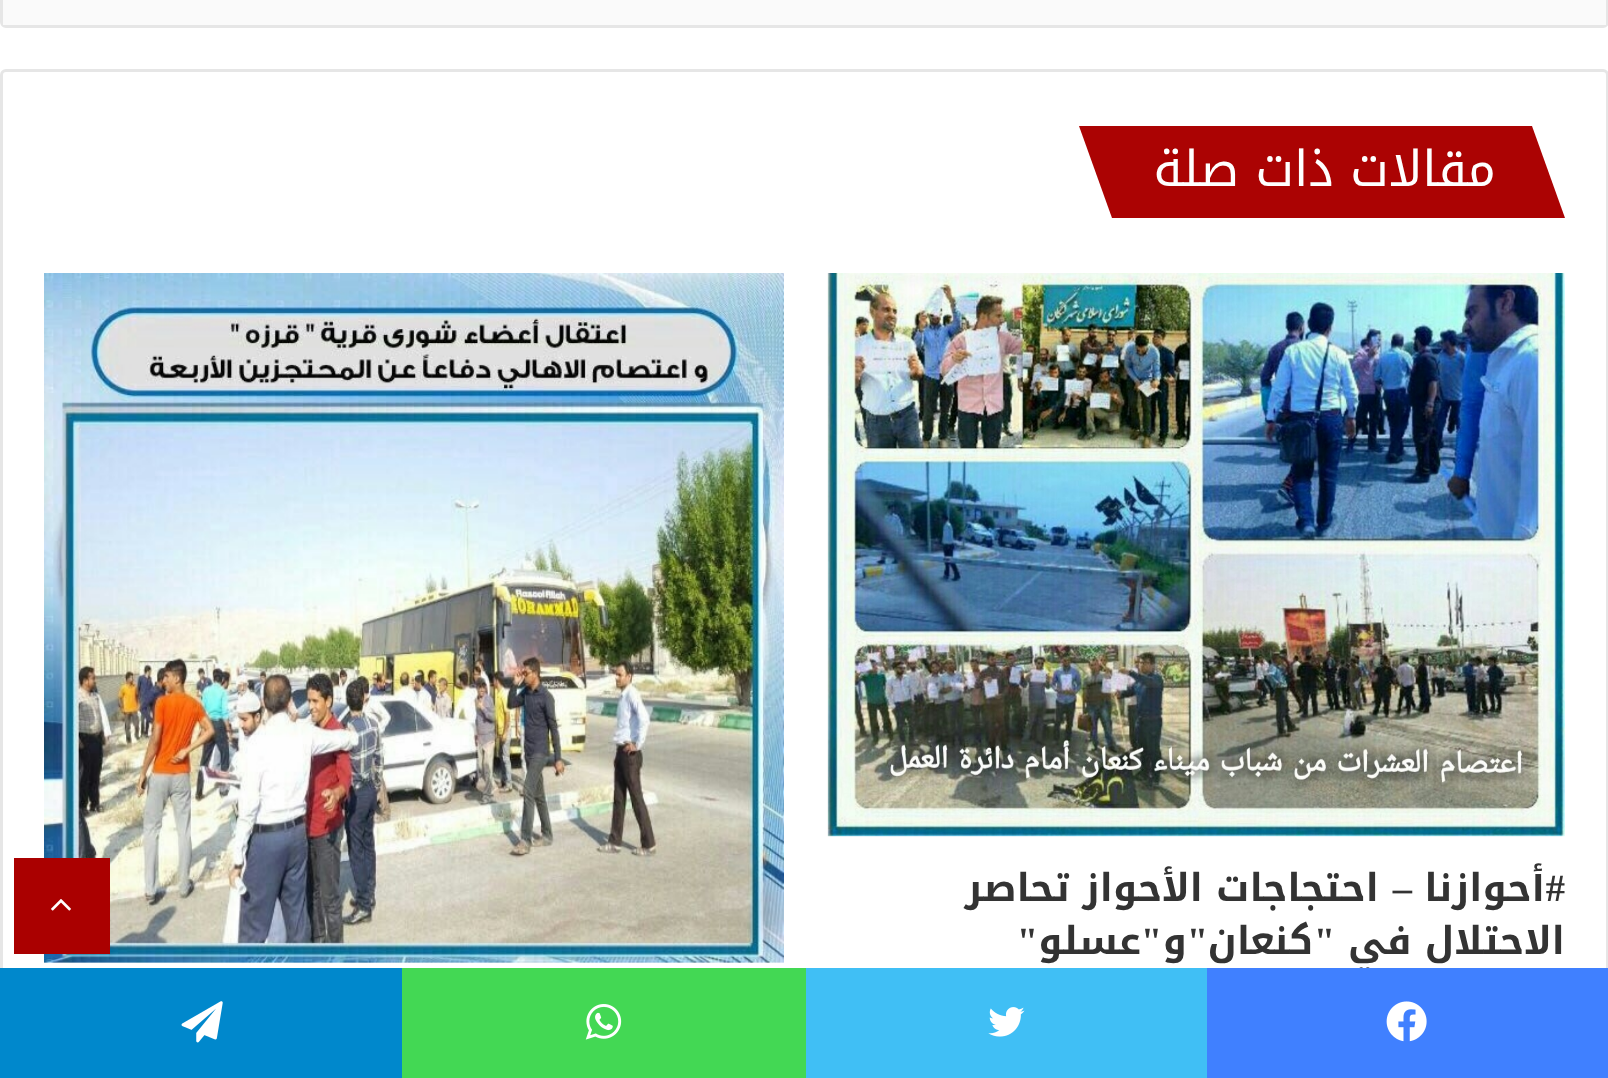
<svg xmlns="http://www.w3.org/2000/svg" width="1608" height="1078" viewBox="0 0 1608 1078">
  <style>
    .t1 { font: 49.5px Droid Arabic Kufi; direction: rtl; fill: #fff; }
    .t2 { font: bold 38.5px Liberation Serif; direction: rtl; fill: #333; }
    .t3 { font: bold 38.5px Droid Arabic Kufi; direction: rtl; fill: #333; }
  </style>
  <rect width="100%" height="100%" fill="#fff"/>
  <rect x="1.5" y="-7.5" width="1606" height="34" rx="4.5" fill="none" stroke="#e6e6e6" stroke-width="3"/>
  <rect x="3" y="0" width="1603" height="25" fill="#fafafa"/>
  <rect x="1.5" y="70.5" width="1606" height="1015" rx="4.5" fill="none" stroke="#e6e6e6" stroke-width="3"/>
  <path d="M1079 126H1532L1565 218H1112Z" fill="#ab0303"/>
  <text x="1496" y="186" class="t1">مقالات ذات صلة</text>
  <image x="827" y="273" width="738" height="564" href="images/1.png"/>
  <text x="1565" y="901" class="t2">#</text>
  <text x="1545" y="901" class="t3">أحوازنا</text>
  <text x="1412" y="901" class="t2">–</text>
  <text x="1379" y="901" class="t3">احتجاجات الأحواز تحاصر</text>
  <text x="1565" y="954" class="t3">الاحتلال في</text>
  <text x="1335" y="954" class="t2">"</text>
  <text x="1313" y="954" class="t3">كنعان</text>
  <text x="1208" y="954" class="t2">"</text>
  <text x="1162" y="954" class="t2">"</text>
  <text x="1141" y="954" class="t3">عسلو</text>
  <text x="1038" y="954" class="t2">"</text>
  <text x="1187" y="954" class="t3">و</text>
  <image x="44" y="273" width="740" height="690" href="images/2.png"/>
  <rect x="14" y="858" width="96" height="96" fill="#a00"/>
  <image x="51" y="899" width="20" height="12" href="images/3.png"/>
  <rect x="1207" y="968" width="401" height="110" fill="#4080ff"/>
  <image x="1386" y="1001" width="41" height="41" href="images/4.png"/>
  <rect x="806" y="968" width="401" height="110" fill="#40bff5"/>
  <image x="988" y="1007" width="37" height="30" href="images/5.png"/>
  <rect x="402" y="968" width="404" height="110" fill="#43d854"/>
  <image x="585" y="1004" width="37" height="36" href="images/6.png"/>
  <rect x="0" y="968" width="402" height="110" fill="#08c"/>
  <image x="181" y="1001" width="42" height="42" href="images/7.png"/>
</svg>
